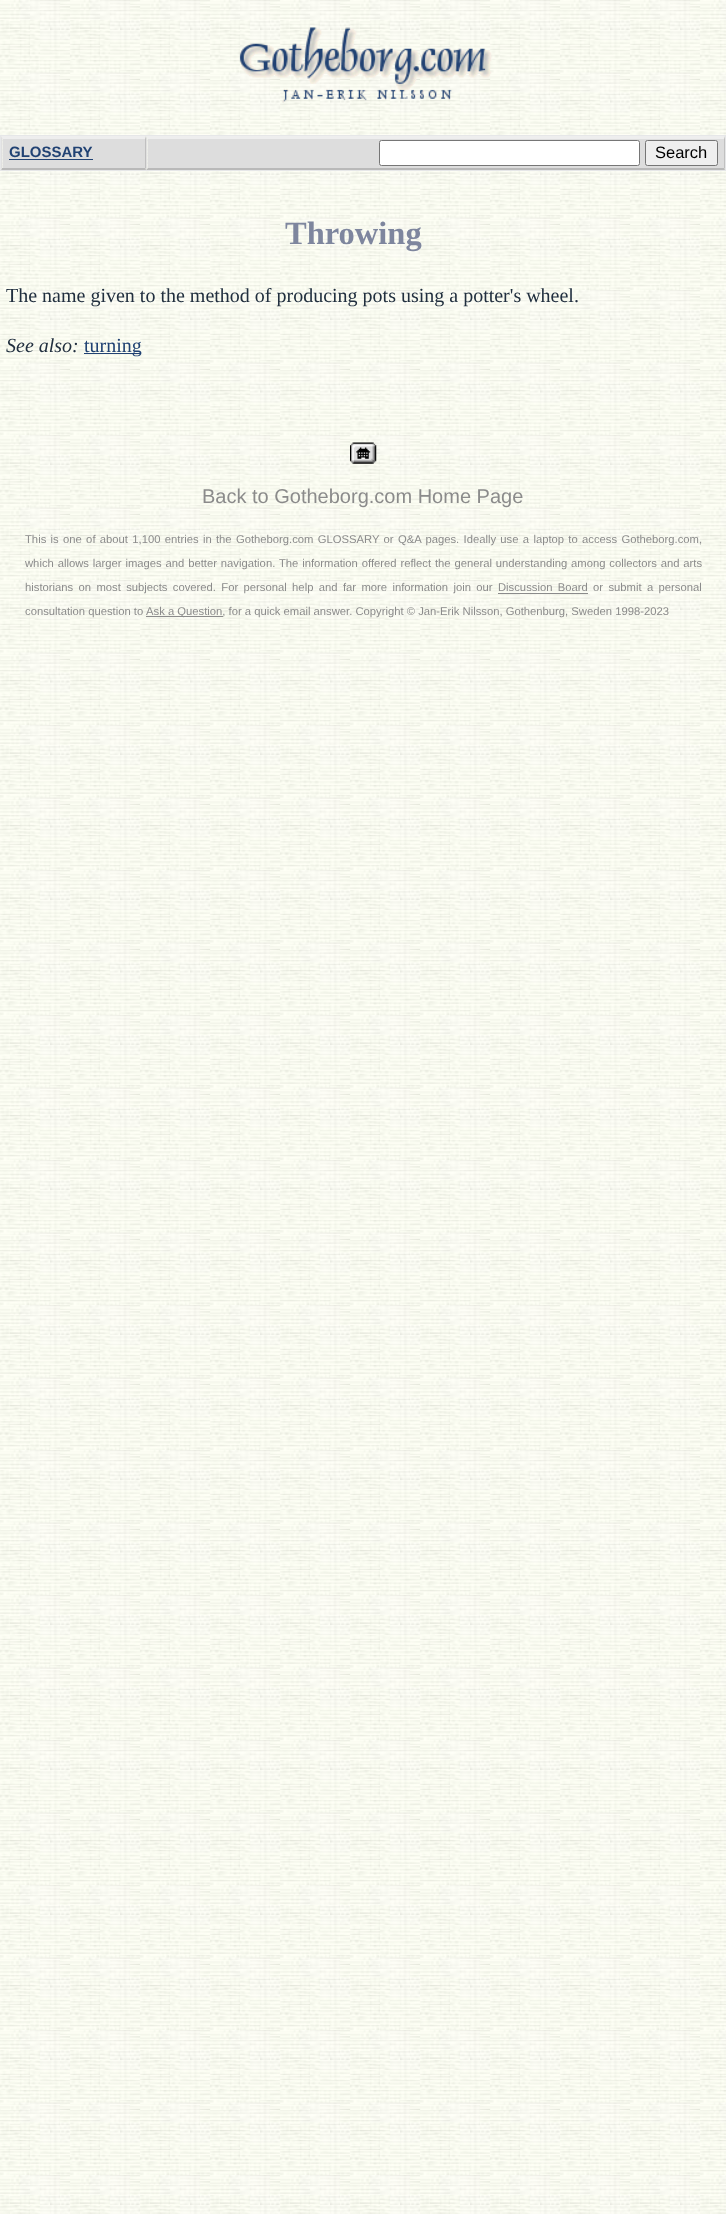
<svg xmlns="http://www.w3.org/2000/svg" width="726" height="2214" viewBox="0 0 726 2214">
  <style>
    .t1 { font: bold 15px Liberation Sans; fill: #214273; }
    .t2 { font: 16.5px Liberation Sans; fill: #000; }
    .t3 { font: bold 32.5px Liberation Serif; fill: #7e869e; }
    .t4 { font: 20px Liberation Serif; fill: #212f3f; }
    .t5 { font: italic 20px Liberation Serif; fill: #212f3f; }
    .t6 { font: 20px Liberation Serif; fill: #214273; }
    .t7 { font: 20px Liberation Sans; fill: #8b8b8b; }
    .t8 { font: 11.25px Liberation Sans; fill: #8b8b8b; }
  </style>
  <rect width="100%" height="100%" fill="#fff"/>
  <image x="0" y="0" width="726" height="2214" href="images/1.png"/>
  <image x="239" y="27" width="253" height="76" href="images/2.png"/>
  <rect x="0.5" y="135.5" width="725" height="35" fill="none" stroke="#e6e7e8"/>
  <rect x="3" y="139" width="142" height="29" fill="#ddd"/>
  <path d="M1 136H146L145 139H2Z" fill="#eee"/>
  <path d="M146 136V170L145 167.5V139Z" fill="#c0c0c0"/>
  <path d="M146 170H1L2 168H145Z" fill="#b9b9b9"/>
  <path d="M1 170V136L2.5 139V167.5Z" fill="#e0e0e0"/>
  <text x="9" y="157" class="t1">GLOSSARY</text>
  <rect x="9" y="159" width="84" height="1" fill="#214273"/>
  <rect x="148" y="139" width="576" height="29" fill="#ddd"/>
  <path d="M146 136H725L724 139H148Z" fill="#eee"/>
  <path d="M725 136V170L724 167.5V139Z" fill="#c0c0c0"/>
  <path d="M725 170H146L148 168H724Z" fill="#b9b9b9"/>
  <path d="M146 170V136L147.5 139V167.5Z" fill="#e0e0e0"/>
  <rect x="379.5" y="140.5" width="260" height="25" rx="2" fill="#fff" stroke="#767676"/>
  <rect x="645.5" y="140.5" width="72" height="25" rx="2" fill="#efefef" stroke="#767676"/>
  <text x="655" y="158" class="t2">Search</text>
  <text x="285" y="244" class="t3">Throwing</text>
  <text x="6" y="302" class="t4">The name given to the method of producing pots using a potter's wheel.</text>
  <text x="6" y="352" class="t5">See also:</text>
  <rect x="84" y="353" width="57" height="1" fill="#214273"/>
  <text x="84" y="352" class="t6">turning</text>
  <image x="350" y="442" width="27" height="22" href="images/3.png"/>
  <text x="202" y="503" class="t7">Back to Gotheborg.com Home Page</text>
  <text x="25" y="543" word-spacing="1.2" class="t8">This is one of about 1,100 entries in the Gotheborg.com GLOSSARY or Q&amp;A pages. Ideally use a laptop to access Gotheborg.com,</text>
  <text x="25" y="567" word-spacing="0.75" class="t8">which allows larger images and better navigation. The information offered reflect the general understanding among collectors and arts</text>
  <text x="25" y="591" word-spacing="2.25" class="t8">historians on most subjects covered. For personal help and far more information join our</text>
  <text x="498" y="591" word-spacing="2.25" class="t8">Discussion Board</text>
  <rect x="498" y="593" width="90" height="1" fill="#8b8b8b"/>
  <text x="593" y="591" word-spacing="2.25" class="t8">or submit a personal</text>
  <text x="25" y="615" class="t8">consultation question to</text>
  <rect x="146" y="616" width="77" height="1" fill="#8b8b8b"/>
  <text x="146" y="615" class="t8">Ask a Question, for a quick email answer. Copyright © Jan-Erik Nilsson, Gothenburg, Sweden 1998-2023</text>
</svg>
